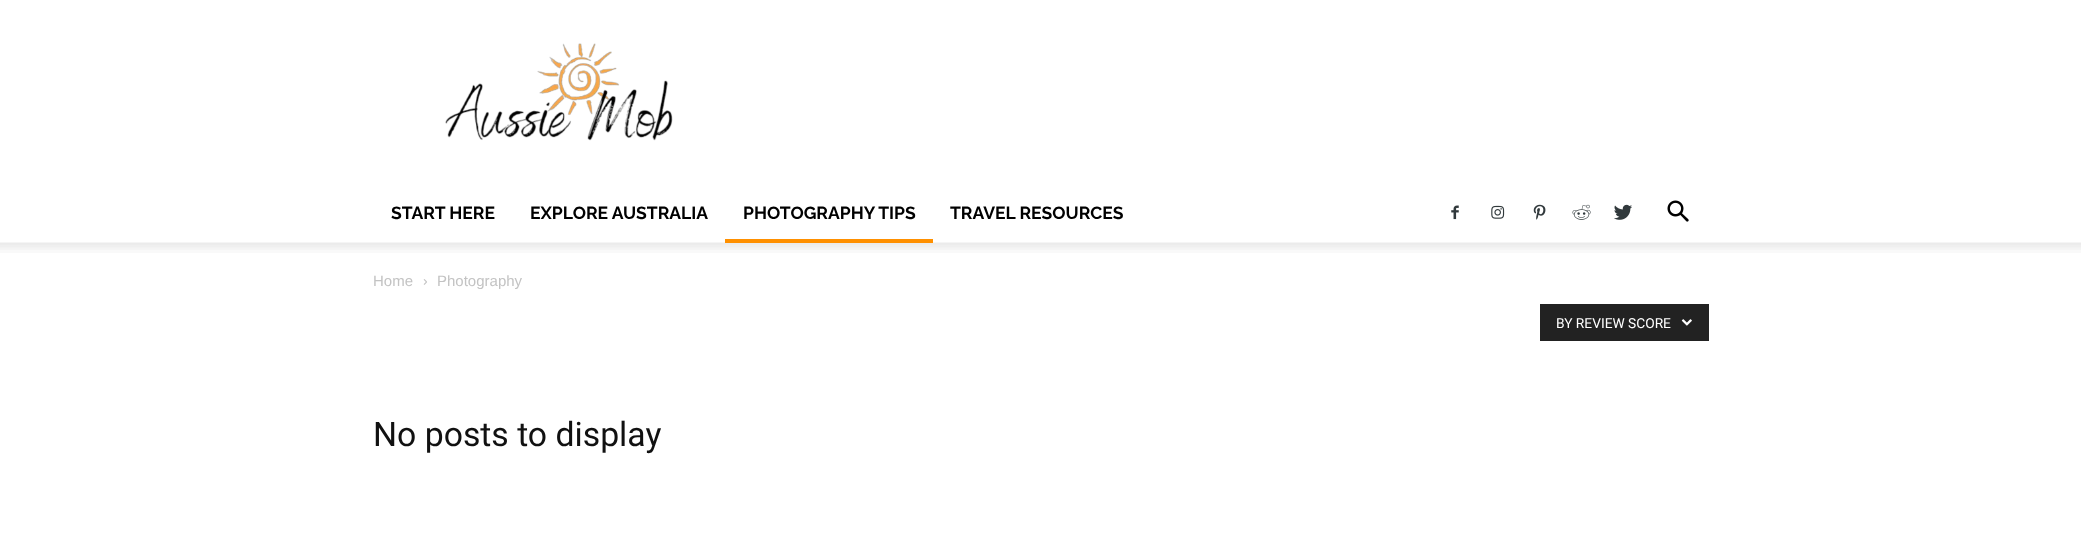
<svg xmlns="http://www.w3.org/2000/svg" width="2081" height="534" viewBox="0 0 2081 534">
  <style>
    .t1 { font: bold 17.5px Raleway; fill: #000; }
    .t2 { font: 15px Liberation Sans; fill: #c3c3c3; }
    .t3 { font: 13.75px Roboto; fill: #fff; }
    .t4 { font: 33.75px Roboto; fill: #111; }
  </style>
  <rect width="100%" height="100%" fill="#fff"/>
  <image x="445" y="43" width="228" height="98" href="images/1.png"/>
  <text x="391" y="219" class="t1">START HERE</text>
  <text x="530" y="219" class="t1">EXPLORE AUSTRALIA</text>
  <text x="743" y="219" class="t1">PHOTOGRAPHY TIPS</text>
  <image x="0" y="242" width="2081" height="11" href="images/8.png"/>
  <rect x="725" y="239" width="208" height="4" fill="#ff9000"/>
  <text x="950" y="219" class="t1">TRAVEL RESOURCES</text>
  <image x="1451" y="205" width="8" height="15" href="images/2.png"/>
  <image x="1491" y="205" width="14" height="14" href="images/3.png"/>
  <image x="1533" y="204" width="13" height="16" href="images/4.png"/>
  <image x="1572" y="204" width="19" height="16" href="images/5.png"/>
  <image x="1614" y="204" width="18" height="16" href="images/6.png"/>
  <image x="1667" y="200" width="22" height="22" href="images/7.png"/>
  <text x="373" y="286" class="t2">Home</text>
  <image x="423" y="279" width="4" height="6" href="images/9.png"/>
  <text x="437" y="286" class="t2">Photography</text>
  <rect x="1540" y="304" width="169" height="37" fill="#222"/>
  <text x="1556" y="328" class="t3">BY REVIEW SCORE</text>
  <image x="1681" y="319" width="11" height="7" href="images/10.png"/>
  <text x="373" y="446" class="t4">No posts to display</text>
</svg>
